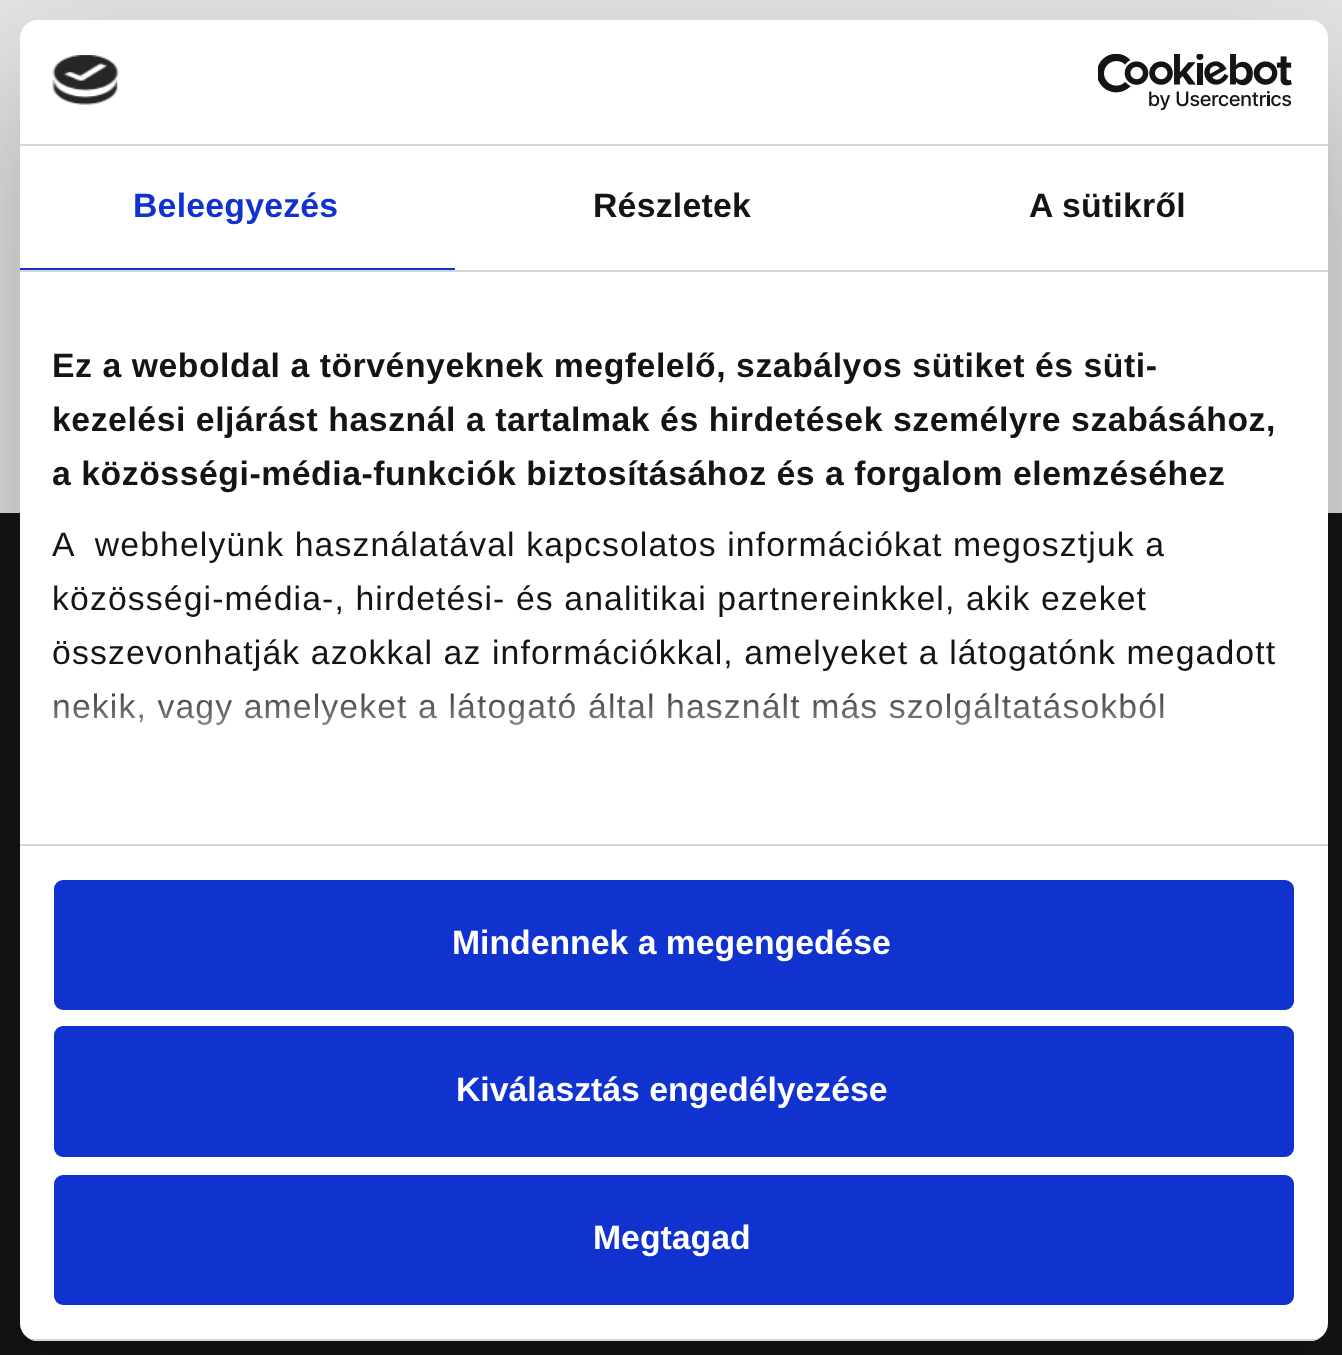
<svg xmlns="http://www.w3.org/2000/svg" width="1342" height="1355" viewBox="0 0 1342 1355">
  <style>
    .t1 { font: bold 33.75px Liberation Sans; letter-spacing: 0.25px; fill: #1032cf; }
    .t2 { font: bold 33.75px Liberation Sans; letter-spacing: 0.25px; fill: #141414; }
    .t3 { font: bold 33.75px Liberation Sans; letter-spacing: 0.55px; fill: #141414; }
    .t4 { font: 33.75px Liberation Sans; letter-spacing: 1.12px; fill: #141414; }
    .t5 { font: bold 33.75px Liberation Sans; fill: #fff; }
  </style>
  <defs>
    <linearGradient id="g1" gradientUnits="userSpaceOnUse" x1="658" y1="843" x2="658" y2="674"><stop offset="0" stop-color="#fff"/><stop offset="0.5" stop-color="#fff" stop-opacity="0.8"/><stop offset="1" stop-color="#fff" stop-opacity="0"/></linearGradient>
    <clipPath id="clip1"><rect x="20" y="20" width="1308" height="1321" rx="18"/></clipPath>
  </defs>
  <rect width="100%" height="100%" fill="#e3e4e6"/>
  <rect x="0" y="513" width="1342" height="842" fill="#141414"/>
  <rect x="20" y="92" width="1308" height="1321" rx="18" fill="#0000004d" filter="blur(76.5px)"/>
  <rect x="20" y="20" width="1308" height="1321" rx="18" fill="#fff"/>
  <rect x="20" y="144" width="1308" height="2" fill="#d6d6d6"/>
  <image x="52" y="55" width="67" height="50" href="images/1.png"/>
  <image x="1098" y="54" width="194" height="56" href="images/2.png"/>
  <rect x="20" y="270" width="1308" height="2" fill="#d6d6d6"/>
  <rect x="20" y="268" width="435" height="2" fill="#1032cf"/>
  <text x="133" y="217" class="t1">Beleegyezés</text>
  <text x="593" y="217" class="t2">Részletek</text>
  <text x="1029" y="217" class="t2">A sütikről</text>
  <rect x="20" y="844" width="1308" height="2" fill="#d6d6d6"/>
  <text x="52" y="377" class="t3">Ez a weboldal a törvényeknek megfelelő, szabályos sütiket és süti-</text>
  <text x="52" y="431" class="t3">kezelési eljárást használ a tartalmak és hirdetések személyre szabásához,</text>
  <text x="52" y="485" class="t3">a közösségi-média-funkciók biztosításához és a forgalom elemzéséhez</text>
  <text x="52" y="556" class="t4" xml:space="preserve">A  webhelyünk használatával kapcsolatos információkat megosztjuk a</text>
  <text x="52" y="610" class="t4">közösségi-média-, hirdetési- és analitikai partnereinkkel, akik ezeket</text>
  <text x="52" y="664" class="t4">összevonhatják azokkal az információkkal, amelyeket a látogatónk megadott</text>
  <text x="52" y="718" class="t4">nekik, vagy amelyeket a látogató által használt más szolgáltatásokból</text>
  <rect x="54" y="693" width="1110" height="32" fill="url(#g1)"/>
  <g clip-path="url(#clip1)">
    <rect x="30" y="1339" width="1288" height="2" fill="#d6d6d6"/>
  </g>
  <rect x="56.5" y="882.5" width="1235" height="125" rx="6.5" fill="#1032cf" stroke="#1032cf" stroke-width="5"/>
  <text x="452" y="954" class="t5">Mindennek a megengedése</text>
  <rect x="56.5" y="1028.5" width="1235" height="126" rx="6.5" fill="#1032cf" stroke="#1032cf" stroke-width="5"/>
  <text x="456" y="1101" class="t5">Kiválasztás engedélyezése</text>
  <rect x="56.5" y="1177.5" width="1235" height="125" rx="6.5" fill="#1032cf" stroke="#1032cf" stroke-width="5"/>
  <text x="593" y="1249" class="t5">Megtagad</text>
</svg>
